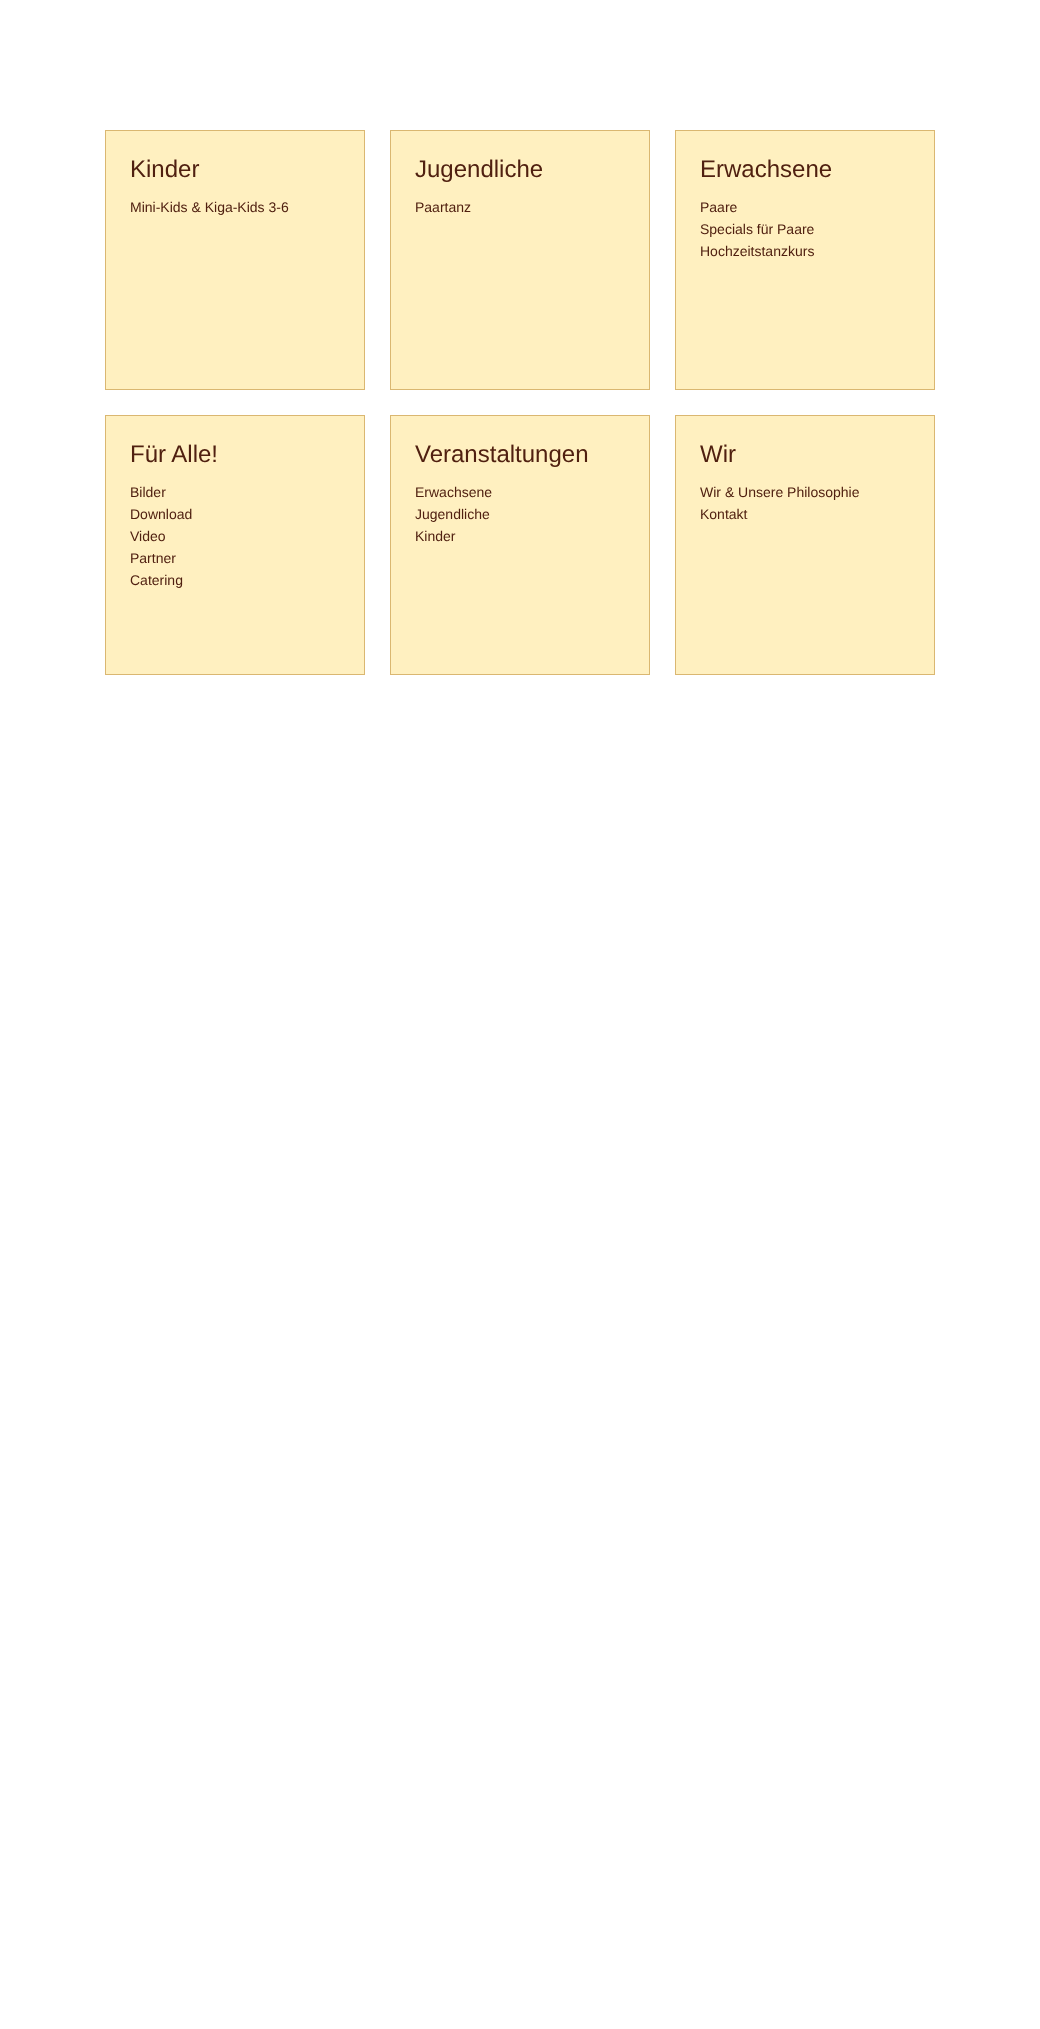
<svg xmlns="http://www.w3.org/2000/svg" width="1040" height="2029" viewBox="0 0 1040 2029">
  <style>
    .t1 { font: 24px Liberation Sans; fill: #502010; }
    .t2 { font: 14px Liberation Sans; fill: #502010; }
  </style>
  <rect width="100%" height="100%" fill="#fff"/>
  <rect x="105.5" y="130.5" width="259" height="259" fill="#fff0c0" stroke="#dab771"/>
  <text x="130" y="177" class="t1">Kinder</text>
  <text x="130" y="212" class="t2">Mini-Kids &amp; Kiga-Kids 3-6</text>
  <rect x="390.5" y="130.5" width="259" height="259" fill="#fff0c0" stroke="#dab771"/>
  <text x="415" y="177" class="t1">Jugendliche</text>
  <text x="415" y="212" class="t2">Paartanz</text>
  <rect x="675.5" y="130.5" width="259" height="259" fill="#fff0c0" stroke="#dab771"/>
  <text x="700" y="177" class="t1">Erwachsene</text>
  <text x="700" y="212" class="t2">Paare</text>
  <text x="700" y="234" class="t2">Specials für Paare</text>
  <text x="700" y="256" class="t2">Hochzeitstanzkurs</text>
  <rect x="105.5" y="415.5" width="259" height="259" fill="#fff0c0" stroke="#dab771"/>
  <text x="130" y="462" class="t1">Für Alle!</text>
  <text x="130" y="497" class="t2">Bilder</text>
  <text x="130" y="519" class="t2">Download</text>
  <text x="130" y="541" class="t2">Video</text>
  <text x="130" y="563" class="t2">Partner</text>
  <text x="130" y="585" class="t2">Catering</text>
  <rect x="390.5" y="415.5" width="259" height="259" fill="#fff0c0" stroke="#dab771"/>
  <text x="415" y="462" class="t1">Veranstaltungen</text>
  <text x="415" y="497" class="t2">Erwachsene</text>
  <text x="415" y="519" class="t2">Jugendliche</text>
  <text x="415" y="541" class="t2">Kinder</text>
  <rect x="675.5" y="415.5" width="259" height="259" fill="#fff0c0" stroke="#dab771"/>
  <text x="700" y="462" class="t1">Wir</text>
  <text x="700" y="497" class="t2">Wir &amp; Unsere Philosophie</text>
  <text x="700" y="519" class="t2">Kontakt</text>
</svg>
